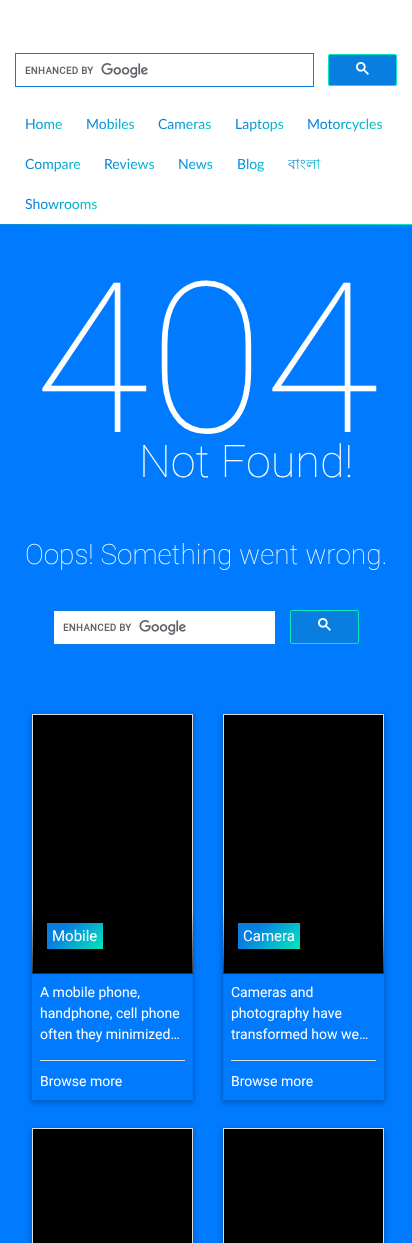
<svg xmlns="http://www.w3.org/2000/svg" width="412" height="1243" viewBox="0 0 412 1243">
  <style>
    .t1 { font: 14px Lato; fill: url(#g1); }
    .t2 { font: 14px Lato; fill: url(#g2); }
    .t3 { font: 14px Lato; fill: url(#g3); }
    .t4 { font: 14px Lato; fill: url(#g4); }
    .t5 { font: 14px Lato; fill: url(#g5); }
    .t6 { font: 14px Lato; fill: url(#g6); }
    .t7 { font: 14px Lato; fill: url(#g7); }
    .t8 { font: 14px Lato; fill: url(#g8); }
    .t9 { font: 14px Lato; fill: url(#g9); }
    .t10 { font: 14px Lohit Bengali; fill: url(#g10); }
    .t11 { font: 14px Lato; fill: url(#g11); }
    .t12 { font: 100 210px Roboto; fill: #fff; }
    .t13 { font: 100 45px Roboto; fill: #fff; }
    .t14 { font: 100 28px Roboto; fill: #fff; }
    .t15 { font: 15px Roboto; fill: #fff; }
    .t16 { font: 14px Roboto; fill: #fff; }
  </style>
  <defs>
    <linearGradient id="g1" gradientUnits="userSpaceOnUse" x1="68" y1="148" x2="19" y2="100"><stop offset="0" stop-color="#05e8ba"/><stop offset="0.74" stop-color="#087ee1"/></linearGradient>
    <linearGradient id="g2" gradientUnits="userSpaceOnUse" x1="137" y1="151" x2="83" y2="97"><stop offset="0" stop-color="#05e8ba"/><stop offset="0.74" stop-color="#087ee1"/></linearGradient>
    <linearGradient id="g3" gradientUnits="userSpaceOnUse" x1="213" y1="152" x2="157" y2="96"><stop offset="0" stop-color="#05e8ba"/><stop offset="0.74" stop-color="#087ee1"/></linearGradient>
    <linearGradient id="g4" gradientUnits="userSpaceOnUse" x1="287" y1="151" x2="232" y2="97"><stop offset="0" stop-color="#05e8ba"/><stop offset="0.74" stop-color="#087ee1"/></linearGradient>
    <linearGradient id="g5" gradientUnits="userSpaceOnUse" x1="379" y1="158" x2="311" y2="90"><stop offset="0" stop-color="#05e8ba"/><stop offset="0.74" stop-color="#087ee1"/></linearGradient>
    <linearGradient id="g6" gradientUnits="userSpaceOnUse" x1="82" y1="193" x2="24" y2="135"><stop offset="0" stop-color="#05e8ba"/><stop offset="0.74" stop-color="#087ee1"/></linearGradient>
    <linearGradient id="g7" gradientUnits="userSpaceOnUse" x1="157" y1="192" x2="102" y2="136"><stop offset="0" stop-color="#05e8ba"/><stop offset="0.74" stop-color="#087ee1"/></linearGradient>
    <linearGradient id="g8" gradientUnits="userSpaceOnUse" x1="219" y1="188" x2="172" y2="140"><stop offset="0" stop-color="#05e8ba"/><stop offset="0.74" stop-color="#087ee1"/></linearGradient>
    <linearGradient id="g9" gradientUnits="userSpaceOnUse" x1="272" y1="186" x2="229" y2="142"><stop offset="0" stop-color="#05e8ba"/><stop offset="0.74" stop-color="#087ee1"/></linearGradient>
    <linearGradient id="g10" gradientUnits="userSpaceOnUse" x1="327" y1="186" x2="281" y2="141"><stop offset="0" stop-color="#05e8ba"/><stop offset="0.74" stop-color="#087ee1"/></linearGradient>
    <linearGradient id="g11" gradientUnits="userSpaceOnUse" x1="94" y1="237" x2="28" y2="171"><stop offset="0" stop-color="#05e8ba"/><stop offset="0.74" stop-color="#087ee1"/></linearGradient>
    <linearGradient id="g12" gradientUnits="userSpaceOnUse" x1="366" y1="271" x2="46" y2="-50"><stop offset="0" stop-color="#05e8ba"/><stop offset="0.74" stop-color="#087ee1"/></linearGradient>
    <clipPath id="clip1"><path d="M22 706H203V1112H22ZM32 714H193V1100H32Z" clip-rule="evenodd"/></clipPath>
    <linearGradient id="g13" gradientUnits="userSpaceOnUse" x1="113" y1="908" x2="113" y2="974"><stop offset="0" stop-color="#000" stop-opacity="0"/><stop offset="1" stop-color="#000" stop-opacity="0.8"/></linearGradient>
    <linearGradient id="g14" gradientUnits="userSpaceOnUse" x1="96" y1="957" x2="55" y2="916"><stop offset="0" stop-color="#05e8ba"/><stop offset="0.74" stop-color="#087ee1"/></linearGradient>
    <clipPath id="clip2"><path d="M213 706H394V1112H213ZM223 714H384V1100H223Z" clip-rule="evenodd"/></clipPath>
    <linearGradient id="g15" gradientUnits="userSpaceOnUse" x1="304" y1="908" x2="304" y2="974"><stop offset="0" stop-color="#000" stop-opacity="0"/><stop offset="1" stop-color="#000" stop-opacity="0.8"/></linearGradient>
    <linearGradient id="g16" gradientUnits="userSpaceOnUse" x1="291" y1="958" x2="247" y2="914"><stop offset="0" stop-color="#05e8ba"/><stop offset="0.74" stop-color="#087ee1"/></linearGradient>
  </defs>
  <rect width="100%" height="100%" fill="#007aff"/>
  <rect x="0" y="224" width="412" height="1" fill="url(#g12)"/>
  <rect x="0" y="0" width="412" height="224" fill="#fff"/>
  <rect x="15.5" y="53.5" width="298" height="33" fill="none" stroke="#087ee1"/>
  <image x="25" y="63" width="123" height="15" href="images/1.png"/>
  <rect x="328.5" y="54.5" width="68" height="31" rx="1.5" fill="#087ee1" stroke="#05e8ba"/>
  <image x="356" y="62" width="13" height="13" href="images/2.png"/>
  <text x="25" y="129" class="t1">Home</text>
  <text x="86" y="129" class="t2">Mobiles</text>
  <text x="158" y="129" class="t3">Cameras</text>
  <text x="235" y="129" class="t4">Laptops</text>
  <text x="307" y="129" class="t5">Motorcycles</text>
  <text x="25" y="169" class="t6">Compare</text>
  <text x="104" y="169" class="t7">Reviews</text>
  <text x="178" y="169" class="t8">News</text>
  <text x="237" y="169" class="t9">Blog</text>
  <text x="288" y="169" class="t10">বাংলা</text>
  <text x="25" y="209" class="t11">Showrooms</text>
  <text x="34" y="432" class="t12">404</text>
  <text x="139" y="477" class="t13">Not Found!</text>
  <text x="25" y="564" class="t14">Oops! Something went wrong.</text>
  <rect x="53.5" y="610.5" width="222" height="34" fill="#fff" stroke="#087ee1"/>
  <image x="63" y="620" width="123" height="15" href="images/1.png"/>
  <rect x="290.5" y="610.5" width="68" height="33" rx="1.5" fill="#087ee1" stroke="#05e8ba"/>
  <image x="318" y="618" width="13" height="13" href="images/2.png"/>
  <g clip-path="url(#clip1)">
    <rect x="31" y="715" width="163" height="388" fill="#00000040" filter="blur(2.5px)"/>
  </g>
  <rect x="32.5" y="714.5" width="160" height="259" fill="#000" stroke="#ddd"/>
  <rect x="32" y="910" width="161" height="64" fill="url(#g13)"/>
  <rect x="47" y="923" width="56" height="26" fill="url(#g14)"/>
  <text x="52" y="941" class="t15">Mobile</text>
  <text x="40" y="997" class="t16">A mobile phone,</text>
  <text x="40" y="1018" class="t16">handphone, cell phone</text>
  <text x="40" y="1039" class="t16">often they minimized…</text>
  <rect x="40" y="1060" width="145" height="1" fill="#ddd"/>
  <text x="40" y="1086" class="t16">Browse more</text>
  <g clip-path="url(#clip2)">
    <rect x="222" y="715" width="163" height="388" fill="#00000040" filter="blur(2.5px)"/>
  </g>
  <rect x="223.5" y="714.5" width="160" height="259" fill="#000" stroke="#ddd"/>
  <rect x="223" y="910" width="161" height="64" fill="url(#g15)"/>
  <rect x="238" y="923" width="62" height="26" fill="url(#g16)"/>
  <text x="243" y="941" class="t15">Camera</text>
  <text x="231" y="997" class="t16">Cameras and</text>
  <text x="231" y="1018" class="t16">photography have</text>
  <text x="231" y="1039" class="t16">transformed how we…</text>
  <rect x="231" y="1060" width="145" height="1" fill="#ddd"/>
  <text x="231" y="1086" class="t16">Browse more</text>
  <rect x="31" y="1129" width="163" height="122" fill="#00000040" filter="blur(2.5px)"/>
  <rect x="32.5" y="1128.5" width="160" height="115" fill="#000" stroke="#ddd"/>
  <rect x="222" y="1129" width="163" height="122" fill="#00000040" filter="blur(2.5px)"/>
  <rect x="223.5" y="1128.5" width="160" height="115" fill="#000" stroke="#ddd"/>
</svg>
